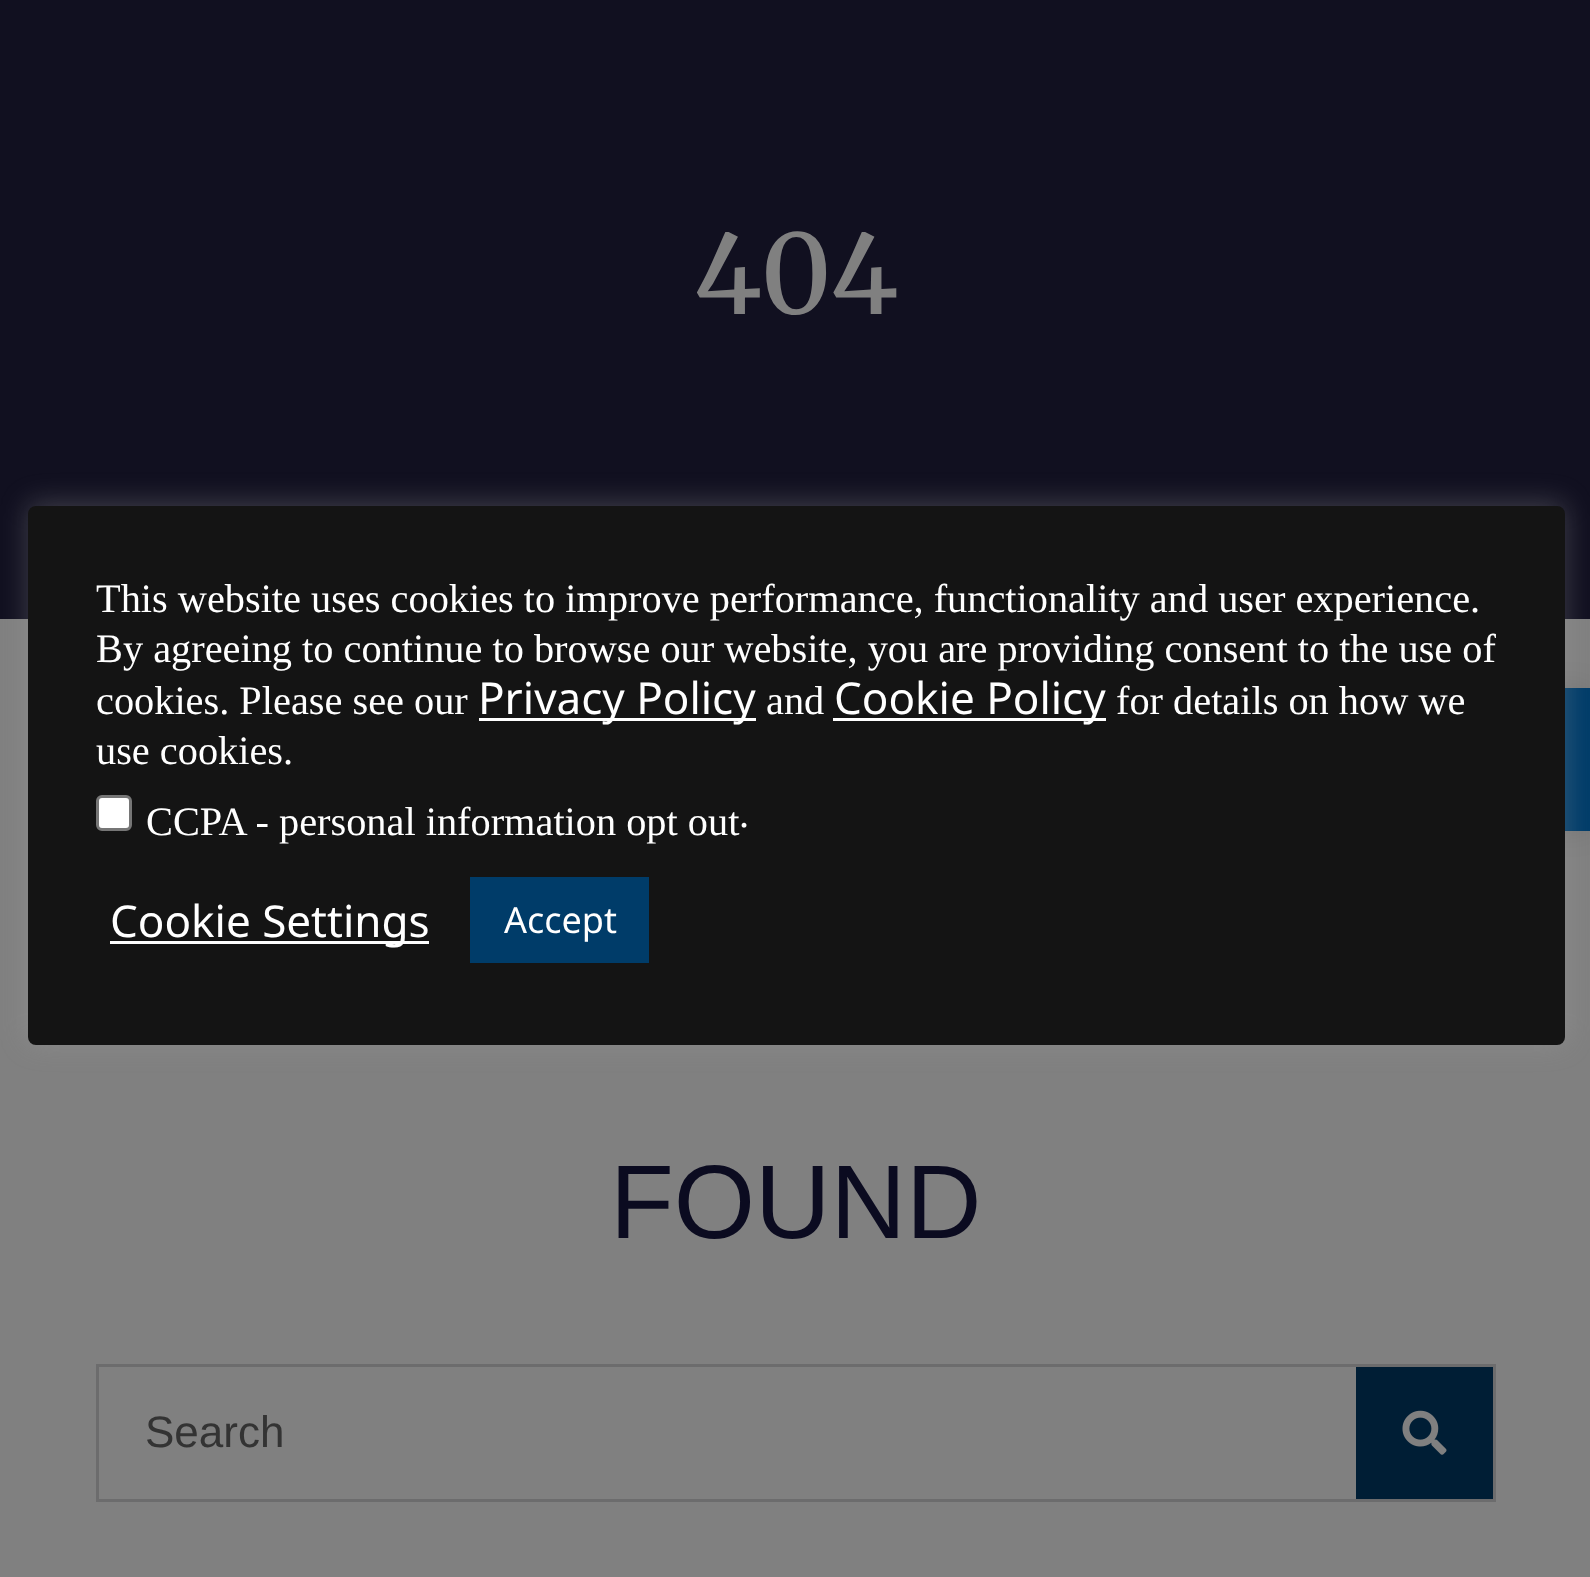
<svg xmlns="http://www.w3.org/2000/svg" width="1590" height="1577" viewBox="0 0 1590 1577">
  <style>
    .t1 { font: 500 110px Merriweather; fill: #808080; }
    .t2 { font: 104.5px Liberation Sans; fill: #0b0b20; }
    .t3 { font: 44px Liberation Sans; fill: #333; }
    .t4 { font: 40.35px Liberation Serif; fill: #fff; }
    .t5 { font: 44px Noto Sans; fill: #fff; }
    .t6 { font: 36px Noto Sans; fill: #fff; }
  </style>
  <rect width="100%" height="100%" fill="#808080"/>
  <rect x="0" y="0" width="1590" height="619" fill="#111020"/>
  <text x="694" y="314" class="t1">404</text>
  <text x="610" y="1238" class="t2">FOUND</text>
  <rect x="97.5" y="1365.5" width="1397" height="135" fill="none" stroke="#6c6c6d" stroke-width="3"/>
  <text x="145" y="1447" class="t3">Search</text>
  <rect x="1356" y="1367" width="137" height="132" fill="#001e35"/>
  <image x="1402" y="1410" width="45" height="45" href="images/1.png"/>
  <rect x="1449" y="688" width="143" height="143" fill="#0000001a" filter="blur(14px)"/>
  <rect x="1565" y="688" width="25" height="143" fill="#003c69"/>
  <rect x="28" y="503" width="1537" height="539" rx="8" fill="#acabab4d" filter="blur(14px)"/>
  <rect x="28" y="506" width="1537" height="539" rx="8" fill="#141414"/>
  <text x="96" y="612" class="t4">This website uses cookies to improve performance, functionality and user experience.</text>
  <text x="96" y="662" class="t4">By agreeing to continue to browse our website, you are providing consent to the use of</text>
  <text x="96" y="714" class="t4">cookies. Please see our</text>
  <rect x="479" y="718" width="277" height="3" fill="#fff"/>
  <text x="478" y="714" class="t5">Privacy Policy</text>
  <text x="766" y="714" class="t4">and</text>
  <rect x="833" y="718" width="273" height="3" fill="#fff"/>
  <text x="834" y="714" class="t5">Cookie Policy</text>
  <text x="1116" y="714" class="t4">for details on how we</text>
  <text x="96" y="764" class="t4">use cookies.</text>
  <rect x="97.5" y="796.5" width="33" height="33" rx="4.5" fill="#fff" stroke="#767676" stroke-width="3"/>
  <text x="146" y="835" class="t4">CCPA - personal information opt out</text>
  <text x="739" y="827" class="t4">.</text>
  <rect x="110" y="941" width="319" height="3" fill="#fff"/>
  <text x="110" y="937" class="t5">Cookie Settings</text>
  <rect x="470" y="877" width="179" height="86" fill="#003c69"/>
  <text x="504" y="933" class="t6">Accept</text>
</svg>
